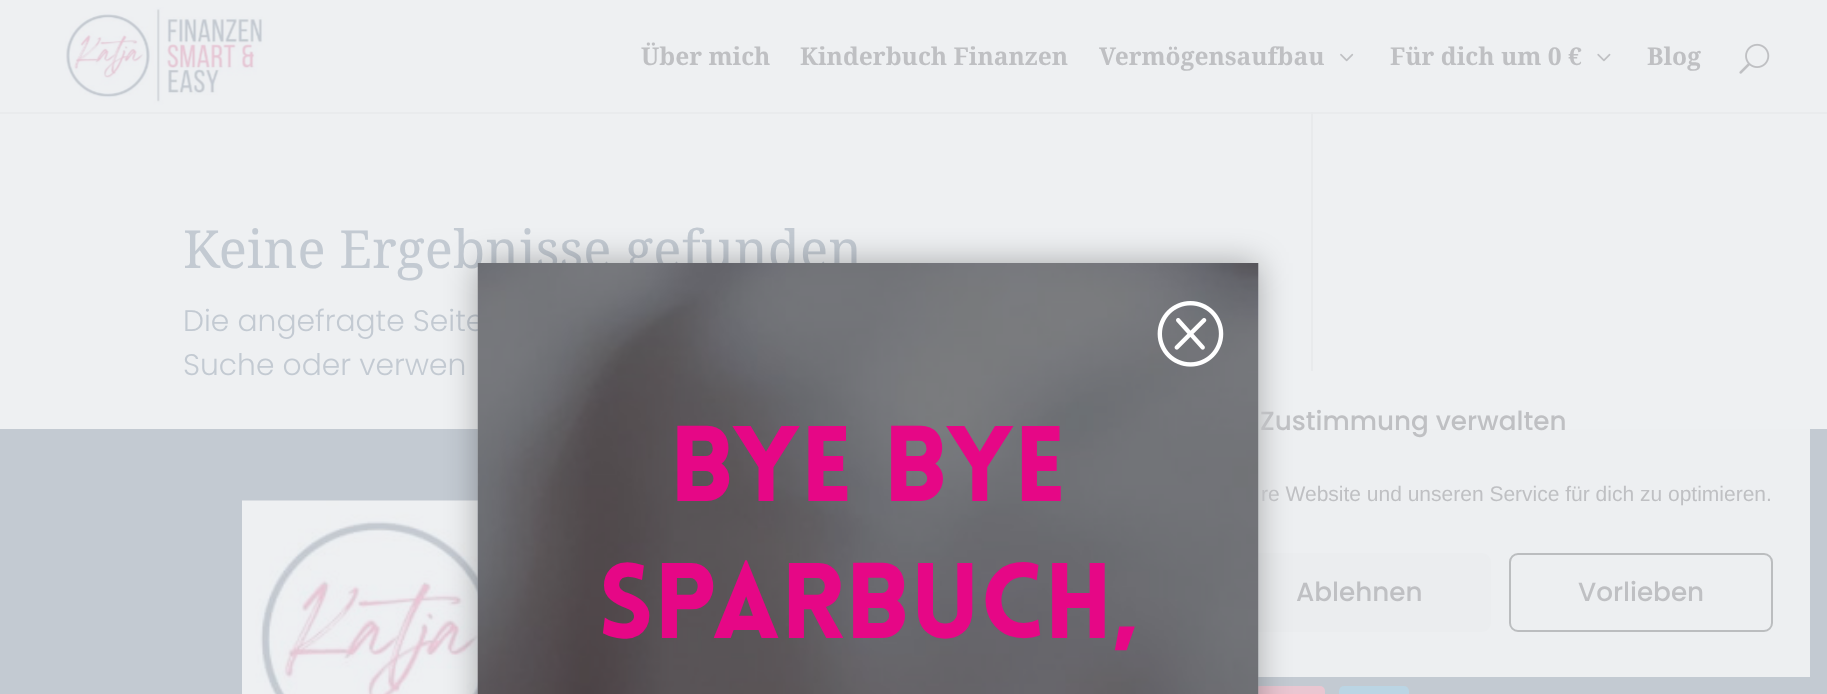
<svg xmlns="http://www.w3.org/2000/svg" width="1827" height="694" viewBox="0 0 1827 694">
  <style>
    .t1 { font: bold 24.5px Noto Serif; fill: #bfc0c3; }
    .t2 { font: 52.5px Noto Serif; fill: #c3cad2; }
    .t3 { font: 300 29.75px Poppins; fill: #c3cad2; }
    .t4 { font: 900 105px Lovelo; fill: #e60786; }
    .t5 { font: 500 26.25px Poppins; fill: #bfc0c3; }
    .t6 { font: 21px Liberation Sans; fill: #bfc0c3; }
  </style>
  <rect width="100%" height="100%" fill="#eef0f2"/>
  <rect x="0" y="112" width="1827" height="2" fill="#e9ebed"/>
  <image x="65" y="7" width="202" height="98" href="images/1.png"/>
  <text x="641" y="65" class="t1">Über mich</text>
  <text x="800" y="65" class="t1">Kinderbuch Finanzen</text>
  <text x="1099" y="65" class="t1">Vermögensaufbau</text>
  <image x="1340" y="53" width="14" height="9" href="images/2.png"/>
  <text x="1390" y="65" class="t1">Für dich um 0 €</text>
  <image x="1597" y="53" width="14" height="9" href="images/3.png"/>
  <text x="1647" y="65" class="t1">Blog</text>
  <image x="1739" y="43" width="31" height="31" href="images/4.png"/>
  <text x="183" y="268" class="t2">Keine Ergebnisse gefunden</text>
  <text x="183" y="331" class="t3">Die angefragte Seite</text>
  <text x="183" y="375" class="t3">Suche oder verwen</text>
  <rect x="1311" y="112" width="2" height="259" fill="#e8eaec"/>
  <rect x="0" y="429" width="1827" height="265" fill="#c3cad2"/>
  <image x="242" y="500" width="236" height="194" href="images/5.png"/>
  <rect x="1255" y="686" width="70" height="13" rx="5" fill="#eac6d1"/>
  <rect x="1339" y="686" width="70" height="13" rx="5" fill="#bbd5e4"/>
  <rect x="1258" y="429" width="552" height="248" fill="#edeff1"/>
  <rect x="1230" y="554" width="260" height="77" rx="8" fill="#ebedef" stroke="#ebedef" stroke-width="2"/>
  <rect x="478" y="263" width="780" height="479" fill="#0000004d" filter="blur(16px)"/>
  <image x="477" y="263" width="782" height="431" href="images/6.png"/>
  <image x="1157" y="301" width="67" height="66" href="images/7.png"/>
  <text x="669" y="501" class="t4">Bye bye</text>
  <text x="598" y="638" class="t4">Sparbuch,</text>
  <text x="1260" y="430" class="t5">Zustimmung verwalten</text>
  <text x="1261" y="501" class="t6">re Website und unseren Service für dich zu optimieren.</text>
  <text x="1296" y="601" class="t5">Ablehnen</text>
  <rect x="1510" y="554" width="262" height="77" rx="8" fill="none" stroke="#bbbdbf" stroke-width="2"/>
  <text x="1578" y="601" class="t5">Vorlieben</text>
</svg>
